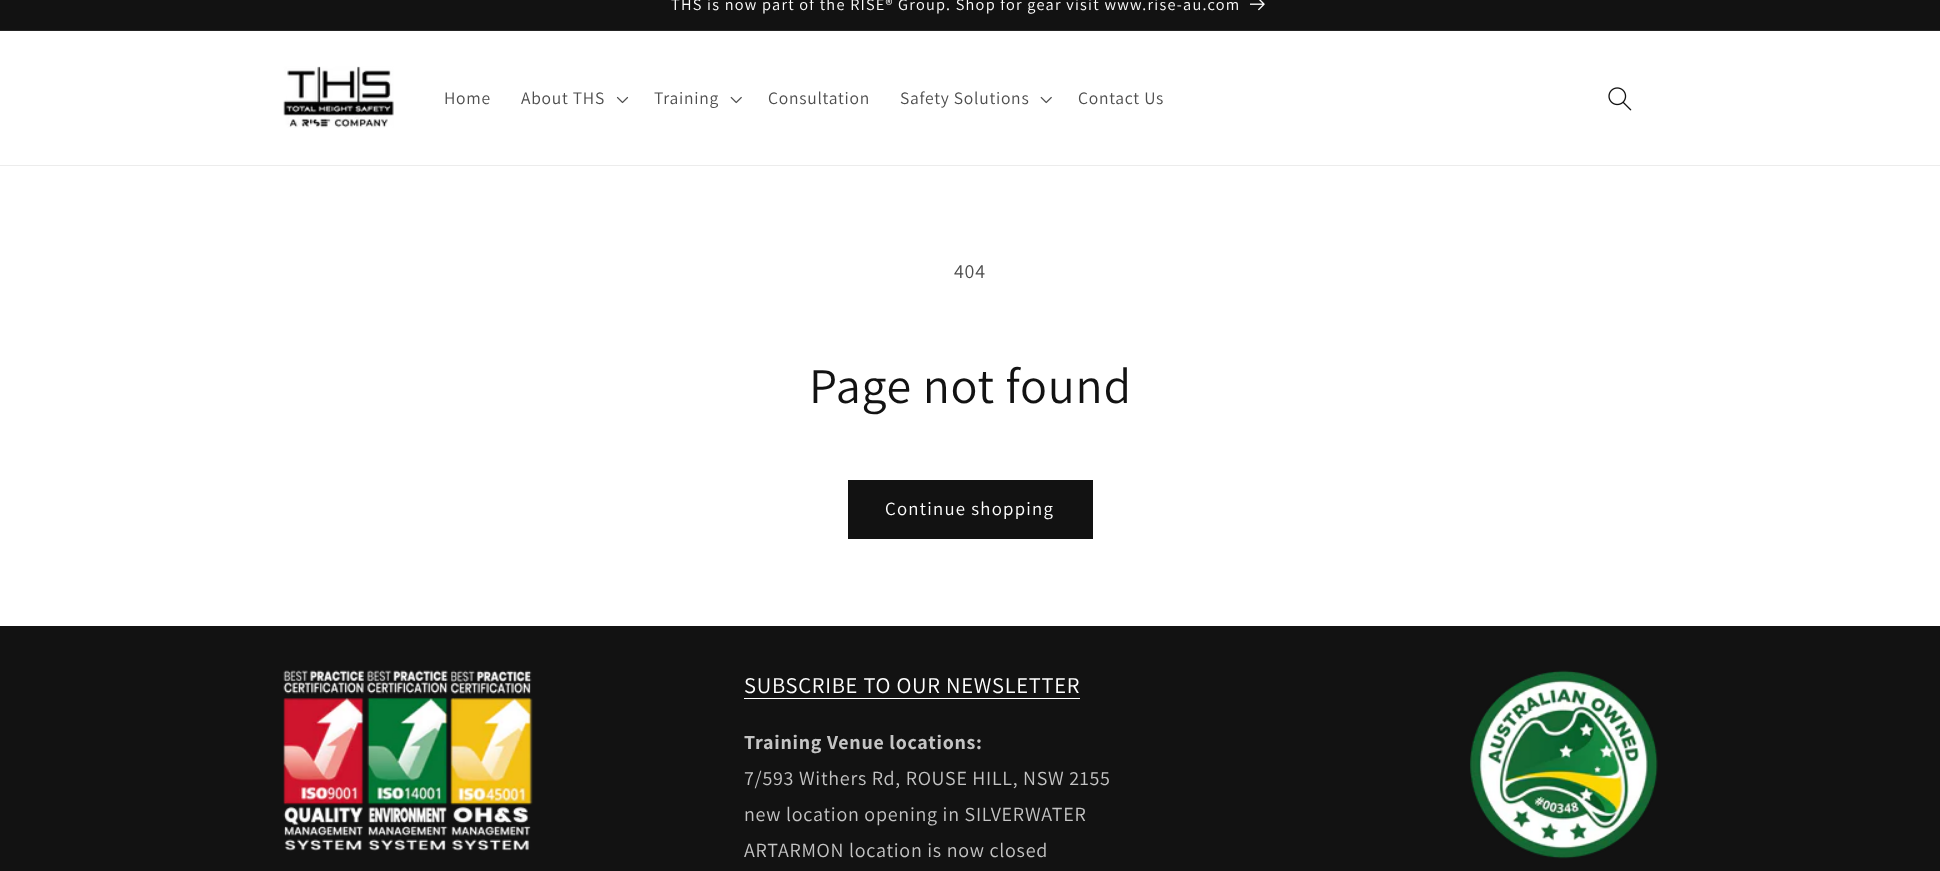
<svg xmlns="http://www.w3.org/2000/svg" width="1940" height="871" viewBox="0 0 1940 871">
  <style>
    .t1 { font: 16.25px Assistant; letter-spacing: 1.25px; fill: #fff; }
    .t2 { font: 17.5px Assistant; letter-spacing: 0.75px; fill: #4d4d4d; }
    .t3 { font: 20px Assistant; letter-spacing: 0.75px; fill: #4d4d4d; }
    .t4 { font: 50px Assistant; letter-spacing: 0.75px; fill: #121212; }
    .t5 { font: 18.75px Assistant; letter-spacing: 1.25px; fill: #fff; }
    .t6 { font: 22.5px Assistant; letter-spacing: 0.75px; fill: #fff; }
    .t7 { font: bold 20px Assistant; letter-spacing: 0.75px; fill: #c4c4c4; }
    .t8 { font: 20px Assistant; letter-spacing: 0.75px; fill: #c4c4c4; }
  </style>
  <rect width="100%" height="100%" fill="#fff"/>
  <rect x="0" y="0" width="1940" height="30" fill="#121212"/>
  <rect x="0" y="30" width="1940" height="1" fill="#252525"/>
  <text x="671" y="10" class="t1">THS is now part of the RISE® Group. Shop for gear visit www.rise-au.com</text>
  <image x="1250" y="0" width="15" height="11" href="images/1.png"/>
  <rect x="0" y="165" width="1940" height="1" fill="#ececec"/>
  <image x="283" y="66" width="111" height="62" href="images/2.png"/>
  <text x="444" y="104" class="t2">Home</text>
  <text x="521" y="104" class="t2">About THS</text>
  <image x="616" y="96" width="13" height="8" href="images/3.png"/>
  <text x="654" y="104" class="t2">Training</text>
  <image x="730" y="96" width="12" height="8" href="images/4.png"/>
  <text x="768" y="104" class="t2">Consultation</text>
  <text x="900" y="104" class="t2">Safety Solutions</text>
  <image x="1040" y="96" width="12" height="8" href="images/4.png"/>
  <text x="1078" y="104" class="t2">Contact Us</text>
  <image x="1608" y="87" width="24" height="24" href="images/5.png"/>
  <text x="954" y="278" class="t3">404</text>
  <text x="809" y="403" class="t4">Page not found</text>
  <rect x="848" y="480" width="245" height="59" fill="#121212"/>
  <text x="885" y="515" class="t5">Continue shopping</text>
  <rect x="0" y="626" width="1940" height="245" fill="#121212"/>
  <image x="283" y="670" width="250" height="181" href="images/6.png"/>
  <text x="744" y="693" class="t6">SUBSCRIBE TO OUR NEWSLETTER</text>
  <rect x="744" y="698" width="336" height="1" fill="#fff"/>
  <text x="744" y="749" class="t7">Training Venue locations:</text>
  <text x="744" y="785" class="t8">7/593 Withers Rd, ROUSE HILL, NSW 2155</text>
  <text x="744" y="821" class="t8">new location opening in SILVERWATER</text>
  <text x="744" y="857" class="t8">ARTARMON location is now closed</text>
  <image x="1470" y="670" width="188" height="189" href="images/7.png"/>
</svg>
